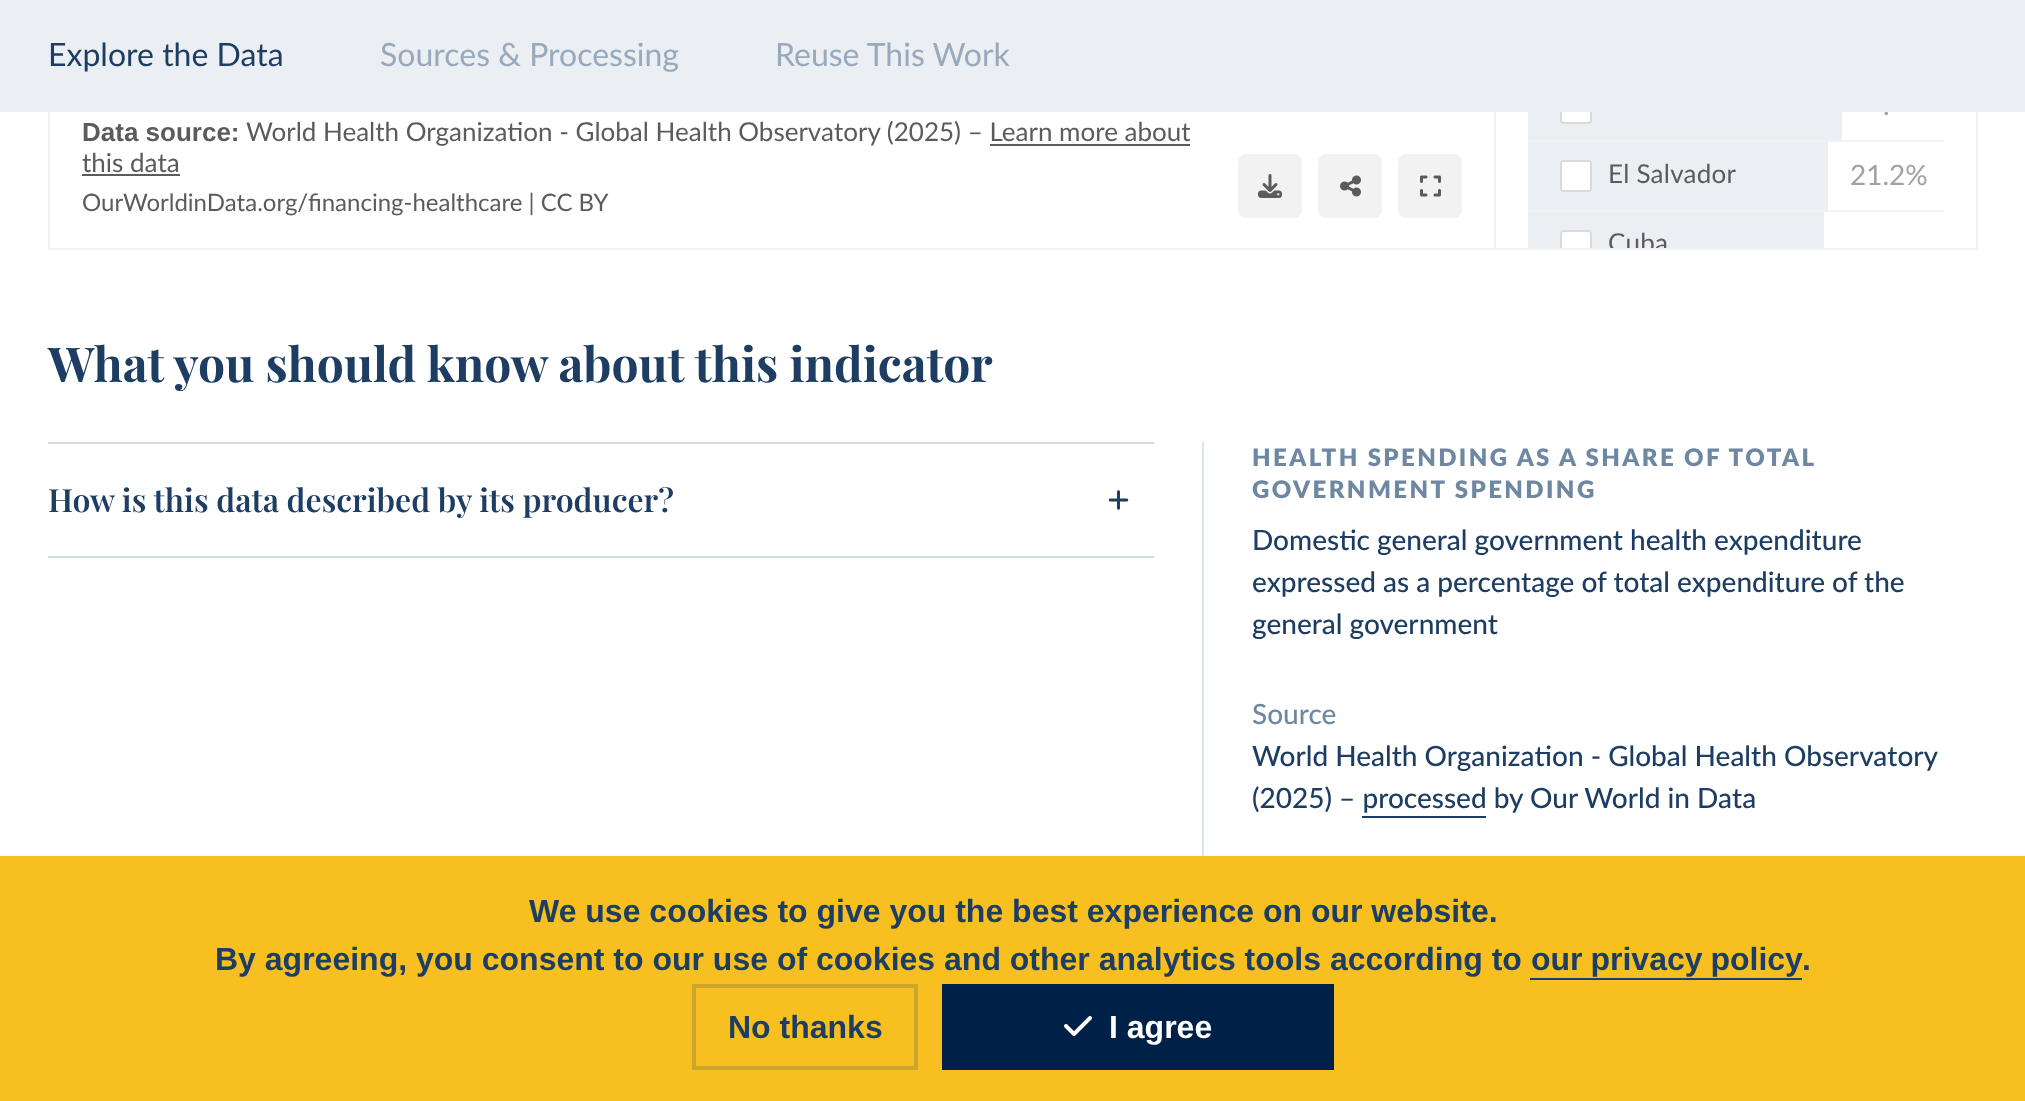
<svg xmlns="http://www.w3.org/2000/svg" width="2025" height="1101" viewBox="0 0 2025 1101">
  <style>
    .t1 { font: 28px Lato; fill: #a1a1a1; }
    .t2 { font: 32px Lato; fill: #1d3d63; }
    .t3 { font: 32px Lato; fill: #98a9bd; }
    .t4 { font: bold 26px Liberation Sans; fill: #5b5b5b; }
    .t5 { font: 26px Lato; fill: #5b5b5b; }
    .t6 { font: 24px Lato; fill: #5b5b5b; }
    .t7 { font: 26px Lato; letter-spacing: 0.25px; fill: #5b5b5b; }
    .t8 { font: bold 48px Playfair Display; fill: #1d3d63; }
    .t9 { font: 600 32px Playfair Display; fill: #1d3d63; }
    .t10 { font: 900 24px Lato; letter-spacing: 2.4px; fill: #6e87a2; }
    .t11 { font: 500 28px Lato; fill: #1d3d63; }
    .t12 { font: 500 28px Lato; fill: #6e87a2; }
    .t13 { font: bold 32px Liberation Sans; fill: #1d3d63; }
    .t14 { font: bold 32px Liberation Sans; fill: #fff; }
  </style>
  <defs>
    <clipPath id="clip1"><rect x="1496" y="0" width="480" height="248"/></clipPath>
  </defs>
  <rect width="100%" height="100%" fill="#fff"/>
  <rect x="49" y="-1" width="1928" height="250" fill="none" stroke="#f2f2f2" stroke-width="2"/>
  <rect x="1528" y="112" width="314" height="28" fill="#ebeef2"/>
  <rect x="1561" y="93" width="30" height="30" rx="3" fill="#fff" stroke="#dadada" stroke-width="2"/>
  <text x="1883" y="115" class="t1">.</text>
  <rect x="0" y="0" width="2025" height="112" fill="#ebeef2"/>
  <text x="48" y="66" class="t2">Explore the Data</text>
  <text x="380" y="66" class="t3">Sources &amp; Processing</text>
  <text x="775" y="66" class="t3">Reuse This Work</text>
  <text x="82" y="141" class="t4">Data source:</text>
  <text x="246" y="141" class="t5">World Health Organization - Global Health Observatory (2025) – Learn more about</text>
  <text x="82" y="172" class="t5">this data</text>
  <rect x="990" y="144" width="200" height="2" fill="#5b5b5b"/>
  <rect x="82" y="174" width="98" height="2" fill="#5b5b5b"/>
  <text x="82" y="211" class="t6">OurWorldinData.org/financing-healthcare | CC BY</text>
  <rect x="1238" y="154" width="64" height="64" rx="8" fill="#f2f2f2"/>
  <image x="1258" y="174" width="24" height="24" href="images/1.png"/>
  <rect x="1318" y="154" width="64" height="64" rx="8" fill="#f2f2f2"/>
  <image x="1340" y="175" width="21" height="22" href="images/2.png"/>
  <rect x="1398" y="154" width="64" height="64" rx="8" fill="#f2f2f2"/>
  <image x="1420" y="175" width="21" height="22" href="images/3.png"/>
  <rect x="1494" y="112" width="2" height="136" fill="#f2f2f2"/>
  <rect x="1528" y="140" width="416" height="2" fill="#f2f2f2"/>
  <rect x="1528" y="142" width="300" height="68" fill="#ebeef2"/>
  <rect x="1561" y="161" width="30" height="30" rx="3" fill="#fff" stroke="#dadada" stroke-width="2"/>
  <text x="1608" y="183" class="t7">El Salvador</text>
  <text x="1850" y="185" class="t1">21.2%</text>
  <rect x="1528" y="210" width="416" height="2" fill="#f2f2f2"/>
  <rect x="1528" y="212" width="296" height="36" fill="#ebeef2"/>
  <path d="M1564 230H1588C1590 230 1592 232 1592 234V248H1560V234C1560 232 1562 230 1564 230Z" fill="#fff"/>
  <g clip-path="url(#clip1)">
    <rect x="1561" y="231" width="30" height="30" rx="3" fill="none" stroke="#dadada" stroke-width="2"/>
    <text x="1608" y="252" class="t7">Cuba</text>
  </g>
  <text x="48" y="382" class="t8">What you should know about this indicator</text>
  <rect x="48" y="442" width="1106" height="2" fill="#d0dae3"/>
  <rect x="48" y="556" width="1106" height="2" fill="#d0dae3"/>
  <text x="48" y="512" class="t9">How is this data described by its producer?</text>
  <image x="1108" y="490" width="21" height="20" href="images/4.png"/>
  <rect x="1202" y="442" width="2" height="414" fill="#dbe5f0"/>
  <text x="1252" y="466" class="t10">HEALTH SPENDING AS A SHARE OF TOTAL</text>
  <text x="1252" y="498" class="t10">GOVERNMENT SPENDING</text>
  <text x="1252" y="550" class="t11">Domestic general government health expenditure</text>
  <text x="1252" y="592" class="t11">expressed as a percentage of total expenditure of the</text>
  <text x="1252" y="634" class="t11">general government</text>
  <text x="1252" y="724" class="t12">Source</text>
  <text x="1252" y="766" class="t11">World Health Organization - Global Health Observatory</text>
  <text x="1252" y="808" class="t11">(2025) – processed by Our World in Data</text>
  <rect x="1362" y="816" width="124" height="2" fill="#1d3d63"/>
  <rect x="0" y="856" width="2025" height="245" fill="#f7c020"/>
  <text x="529" y="922" class="t13">We use cookies to give you the best experience on our website.</text>
  <text x="215" y="970" class="t13">By agreeing, you consent to our use of cookies and other analytics tools according to</text>
  <text x="1531" y="970" word-spacing="-1" class="t13">our privacy policy</text>
  <rect x="1530" y="978" width="272" height="2" fill="#1d3d63"/>
  <text x="1802" y="970" class="t13">.</text>
  <rect x="694" y="986" width="222" height="82" fill="none" stroke="#cba62d" stroke-width="4"/>
  <text x="728" y="1038" class="t13">No thanks</text>
  <rect x="942" y="984" width="392" height="86" fill="#002147"/>
  <image x="1064" y="1016" width="28" height="20" href="images/5.png"/>
  <text x="1109" y="1038" class="t14">I agree</text>
</svg>
